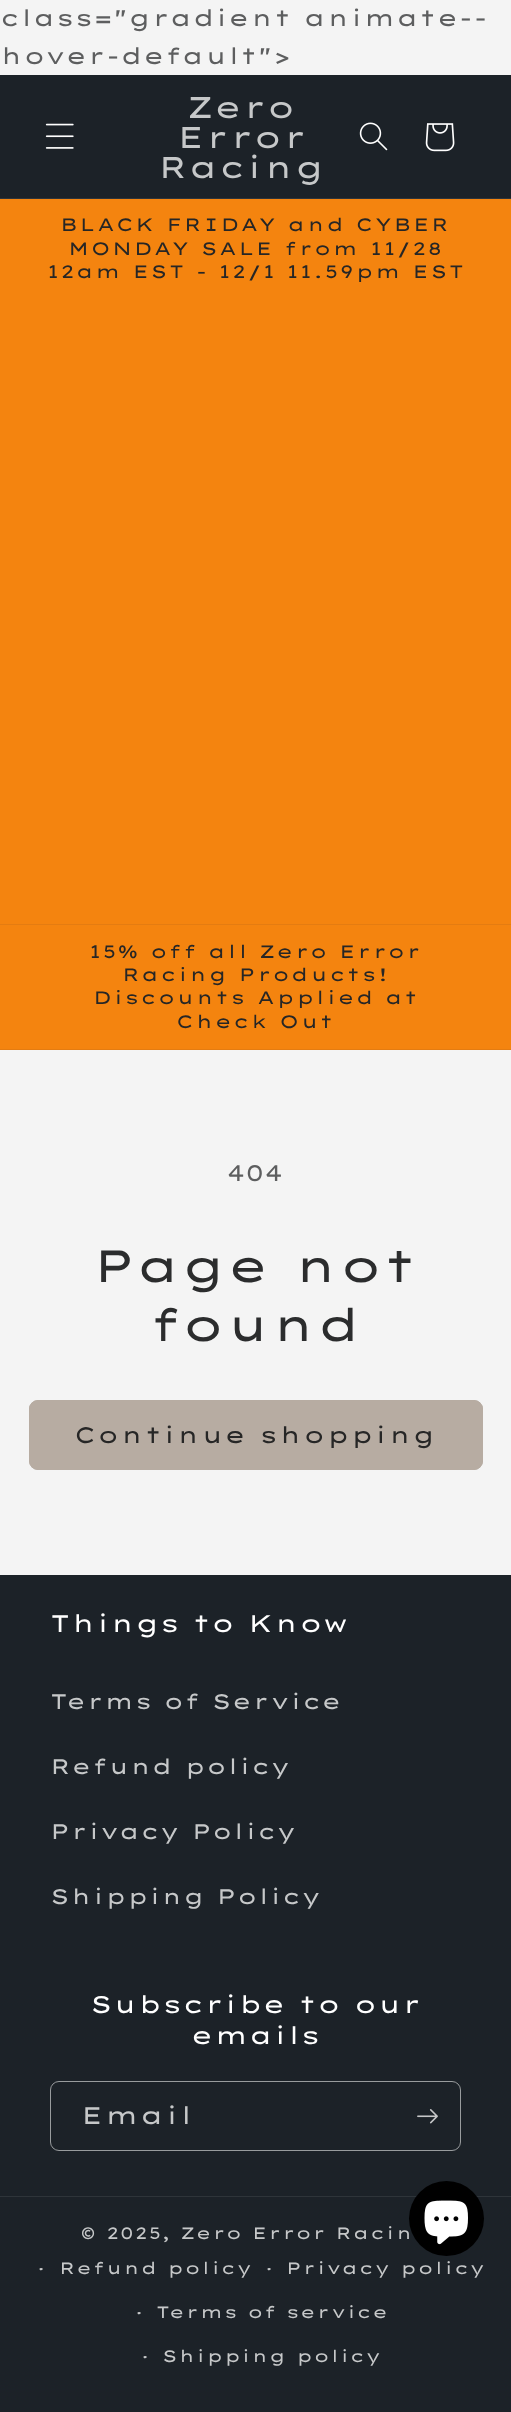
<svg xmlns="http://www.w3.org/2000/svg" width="511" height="2412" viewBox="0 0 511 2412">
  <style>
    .t1 { font: 22.5px Lexend Zetta; letter-spacing: 0.9px; fill: #5d5e5f; }
    .t2 { font: 30px Lexend Zetta; letter-spacing: 0.9px; fill: #c6c8c9; }
    .t3 { font: 18px Lexend Zetta; letter-spacing: 1.5px; fill: #262626; }
    .t4 { font: 45px Lexend Zetta; letter-spacing: 0.9px; fill: #2b2c2d; }
    .t5 { font: 22.5px Lexend Zetta; letter-spacing: 1.5px; fill: #262626; }
    .t6 { font: 24px Lexend Zetta; letter-spacing: 0.9px; fill: #fff; }
    .t7 { font: 21px Lexend Zetta; letter-spacing: 0.9px; fill: #c6c8c9; }
    .t8 { font: 24px Lexend Zetta; letter-spacing: 1.5px; fill: #c6c8c9; }
    .t9 { font: 16.5px Lexend Zetta; letter-spacing: 1.05px; fill: #c6c8c9; }
    .t10 { font: 15px Lexend Zetta; letter-spacing: 1.05px; fill: #c6c8c9; }
  </style>
  <rect width="100%" height="100%" fill="#f4f4f4"/>
  <text x="0" y="26" class="t1">class="gradient animate--</text>
  <text x="0" y="64" class="t1">hover-default"&gt;</text>
  <rect x="0" y="75" width="511" height="123" fill="#1c2228"/>
  <rect x="0" y="198" width="511" height="1" fill="#2e3439"/>
  <image x="45" y="123" width="29" height="26" href="images/1.png"/>
  <text x="187" y="118" class="t2">Zero</text>
  <text x="177" y="148" class="t2">Error</text>
  <text x="158" y="178" class="t2">Racing</text>
  <image x="359" y="122" width="29" height="29" href="images/2.png"/>
  <image x="425" y="123" width="30" height="29" href="images/3.png"/>
  <rect x="0" y="199" width="511" height="725" fill="#f4840f"/>
  <rect x="0" y="924" width="511" height="1" fill="#e47c11"/>
  <text x="60" y="231" class="t3">BLACK FRIDAY and CYBER</text>
  <text x="68" y="255" class="t3">MONDAY SALE from 11/28</text>
  <text x="47" y="278" class="t3">12am EST - 12/1 11.59pm EST</text>
  <rect x="0" y="925" width="511" height="124" fill="#f4840f"/>
  <rect x="0" y="1049" width="511" height="1" fill="#e47c11"/>
  <text x="89" y="958" class="t3">15% off all Zero Error</text>
  <text x="122" y="981" class="t3">Racing Products!</text>
  <text x="93" y="1004" class="t3">Discounts Applied at</text>
  <text x="176" y="1028" class="t3">Check Out</text>
  <text x="227" y="1181" class="t1">404</text>
  <text x="93" y="1282" class="t4">Page not</text>
  <text x="149" y="1341" class="t4">found</text>
  <rect x="29" y="1400" width="454" height="70" rx="9" fill="#b7aca2"/>
  <rect x="29.5" y="1400.5" width="453" height="69" rx="8.5" fill="none" stroke="#b7aca2"/>
  <text x="74" y="1443" class="t5">Continue shopping</text>
  <rect x="0" y="1575" width="511" height="837" fill="#1c2228"/>
  <text x="50" y="1632" class="t6">Things to Know</text>
  <text x="50" y="1709" class="t7">Terms of Service</text>
  <text x="50" y="1774" class="t7">Refund policy</text>
  <text x="50" y="1839" class="t7">Privacy Policy</text>
  <text x="50" y="1904" class="t7">Shipping Policy</text>
  <text x="90" y="2013" class="t6">Subscribe to our</text>
  <text x="191" y="2044" class="t6">emails</text>
  <rect x="50.5" y="2081.5" width="410" height="69" rx="8.5" fill="none" stroke="#999c9e"/>
  <text x="81" y="2124" class="t8">Email</text>
  <image x="417" y="2109" width="21" height="15" href="images/4.png"/>
  <rect x="0" y="2196" width="511" height="1" fill="#2e3439"/>
  <text x="80" y="2239" class="t9">© 2025, Zero Error Racin</text>
  <text x="37" y="2274" class="t10">·</text>
  <text x="59" y="2274" class="t9">Refund policy</text>
  <text x="265" y="2274" class="t10">·</text>
  <text x="286" y="2274" class="t9">Privacy policy</text>
  <text x="135" y="2318" class="t10">·</text>
  <text x="156" y="2318" class="t9">Terms of service</text>
  <text x="141" y="2362" class="t10">·</text>
  <text x="162" y="2362" class="t9">Shipping policy</text>
  <circle cx="446.5" cy="2218.5" r="37.5" fill="#000"/>
  <image x="424" y="2200" width="44" height="45" href="images/5.png"/>
</svg>
